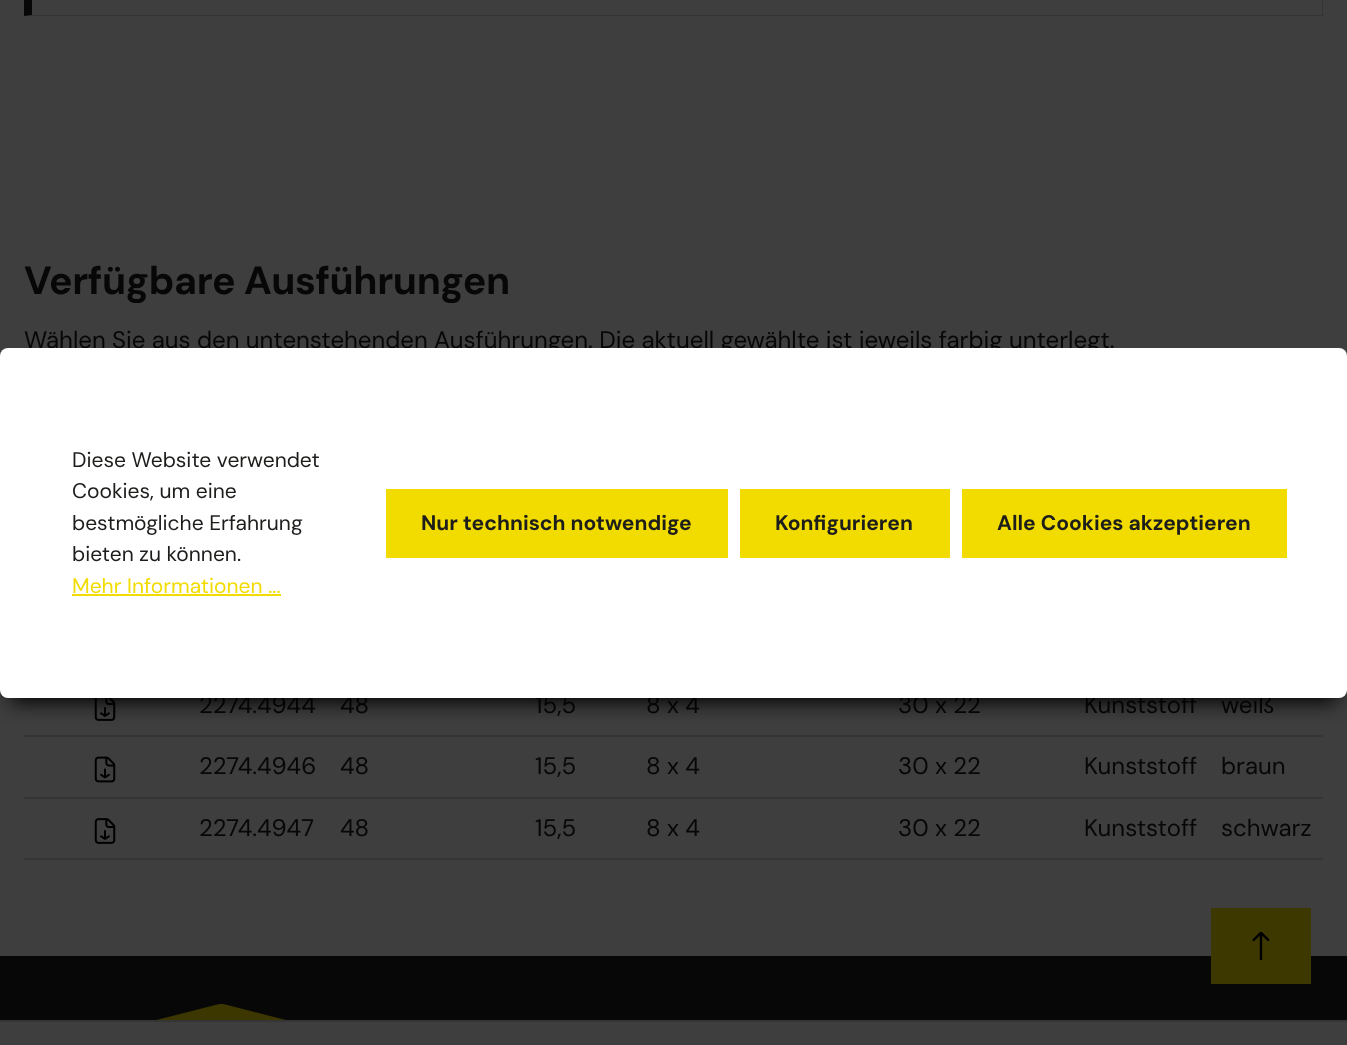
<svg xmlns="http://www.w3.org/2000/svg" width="1347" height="1045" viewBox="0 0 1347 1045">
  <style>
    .t1 { font: bold 39.25px DM Sans; letter-spacing: -0.4px; fill: #070707; }
    .t2 { font: 24px DM Sans; fill: #070707; }
    .t3 { font: 21px DM Sans; fill: #1d1d1b; }
    .t4 { font: 21px DM Sans; fill: #f2dc00; }
    .t5 { font: bold 21px DM Sans; fill: #1d1d1b; }
  </style>
  <rect width="100%" height="100%" fill="#3e3e3e"/>
  <rect x="1322" y="0" width="1" height="17" fill="#353535"/>
  <path d="M1323 16H24L32 15H1322Z" fill="#353535"/>
  <path d="M24 16V-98L32-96V15Z" fill="#070707"/>
  <text x="24" y="294" class="t1">Verfügbare Ausführungen</text>
  <text x="24" y="348" class="t2">Wählen Sie aus den untenstehenden Ausführungen. Die aktuell gewählte ist jeweils farbig unterlegt.</text>
  <image x="94" y="698" width="22" height="23" href="images/1.png"/>
  <text x="199" y="713" class="t2">2274.4944</text>
  <text x="340" y="713" class="t2">48</text>
  <text x="535" y="713" class="t2">15,5</text>
  <text x="646" y="713" class="t2">8 x 4</text>
  <text x="898" y="713" class="t2">30 x 22</text>
  <text x="1084" y="713" class="t2">Kunststoff</text>
  <rect x="24" y="735" width="1299" height="2" fill="#353535"/>
  <text x="1221" y="713" class="t2">weiß</text>
  <image x="94" y="756" width="22" height="27" href="images/2.png"/>
  <text x="199" y="774" class="t2">2274.4946</text>
  <text x="340" y="774" class="t2">48</text>
  <text x="535" y="774" class="t2">15,5</text>
  <text x="646" y="774" class="t2">8 x 4</text>
  <text x="898" y="774" class="t2">30 x 22</text>
  <text x="1084" y="774" class="t2">Kunststoff</text>
  <rect x="24" y="797" width="1299" height="2" fill="#353535"/>
  <text x="1221" y="774" class="t2">braun</text>
  <image x="94" y="818" width="22" height="26" href="images/3.png"/>
  <text x="199" y="836" class="t2">2274.4947</text>
  <text x="340" y="836" class="t2">48</text>
  <text x="535" y="836" class="t2">15,5</text>
  <text x="646" y="836" class="t2">8 x 4</text>
  <text x="898" y="836" class="t2">30 x 22</text>
  <text x="1084" y="836" class="t2">Kunststoff</text>
  <rect x="24" y="858" width="1299" height="2" fill="#353535"/>
  <text x="1221" y="836" class="t2">schwarz</text>
  <rect x="0" y="956" width="1347" height="64" fill="#070707"/>
  <image x="156" y="1004" width="130" height="16" href="images/4.png"/>
  <rect x="0" y="1020" width="1347" height="2" fill="#353535"/>
  <rect x="11" y="374" width="1326" height="328" fill="#000" filter="blur(10px)"/>
  <rect x="0" y="348" width="1347" height="350" rx="8" fill="#fff"/>
  <text x="72" y="467" class="t3">Diese Website verwendet</text>
  <text x="72" y="498" class="t3">Cookies, um eine</text>
  <text x="72" y="530" class="t3">bestmögliche Erfahrung</text>
  <text x="72" y="561" class="t3">bieten zu können.</text>
  <text x="72" y="593" class="t4">Mehr Informationen ...</text>
  <rect x="72" y="594" width="209" height="2" fill="#f2dc00"/>
  <rect x="386" y="489" width="342" height="69" fill="#f2dc00"/>
  <text x="421" y="530" class="t5">Nur technisch notwendige</text>
  <rect x="740" y="489" width="210" height="69" fill="#f2dc00"/>
  <text x="775" y="530" class="t5">Konfigurieren</text>
  <rect x="962" y="489" width="325" height="69" fill="#f2dc00"/>
  <text x="997" y="530" class="t5">Alle Cookies akzeptieren</text>
  <rect x="1211" y="908" width="100" height="76" fill="#3d3700"/>
  <image x="1252" y="932" width="18" height="28" href="images/5.png"/>
</svg>
